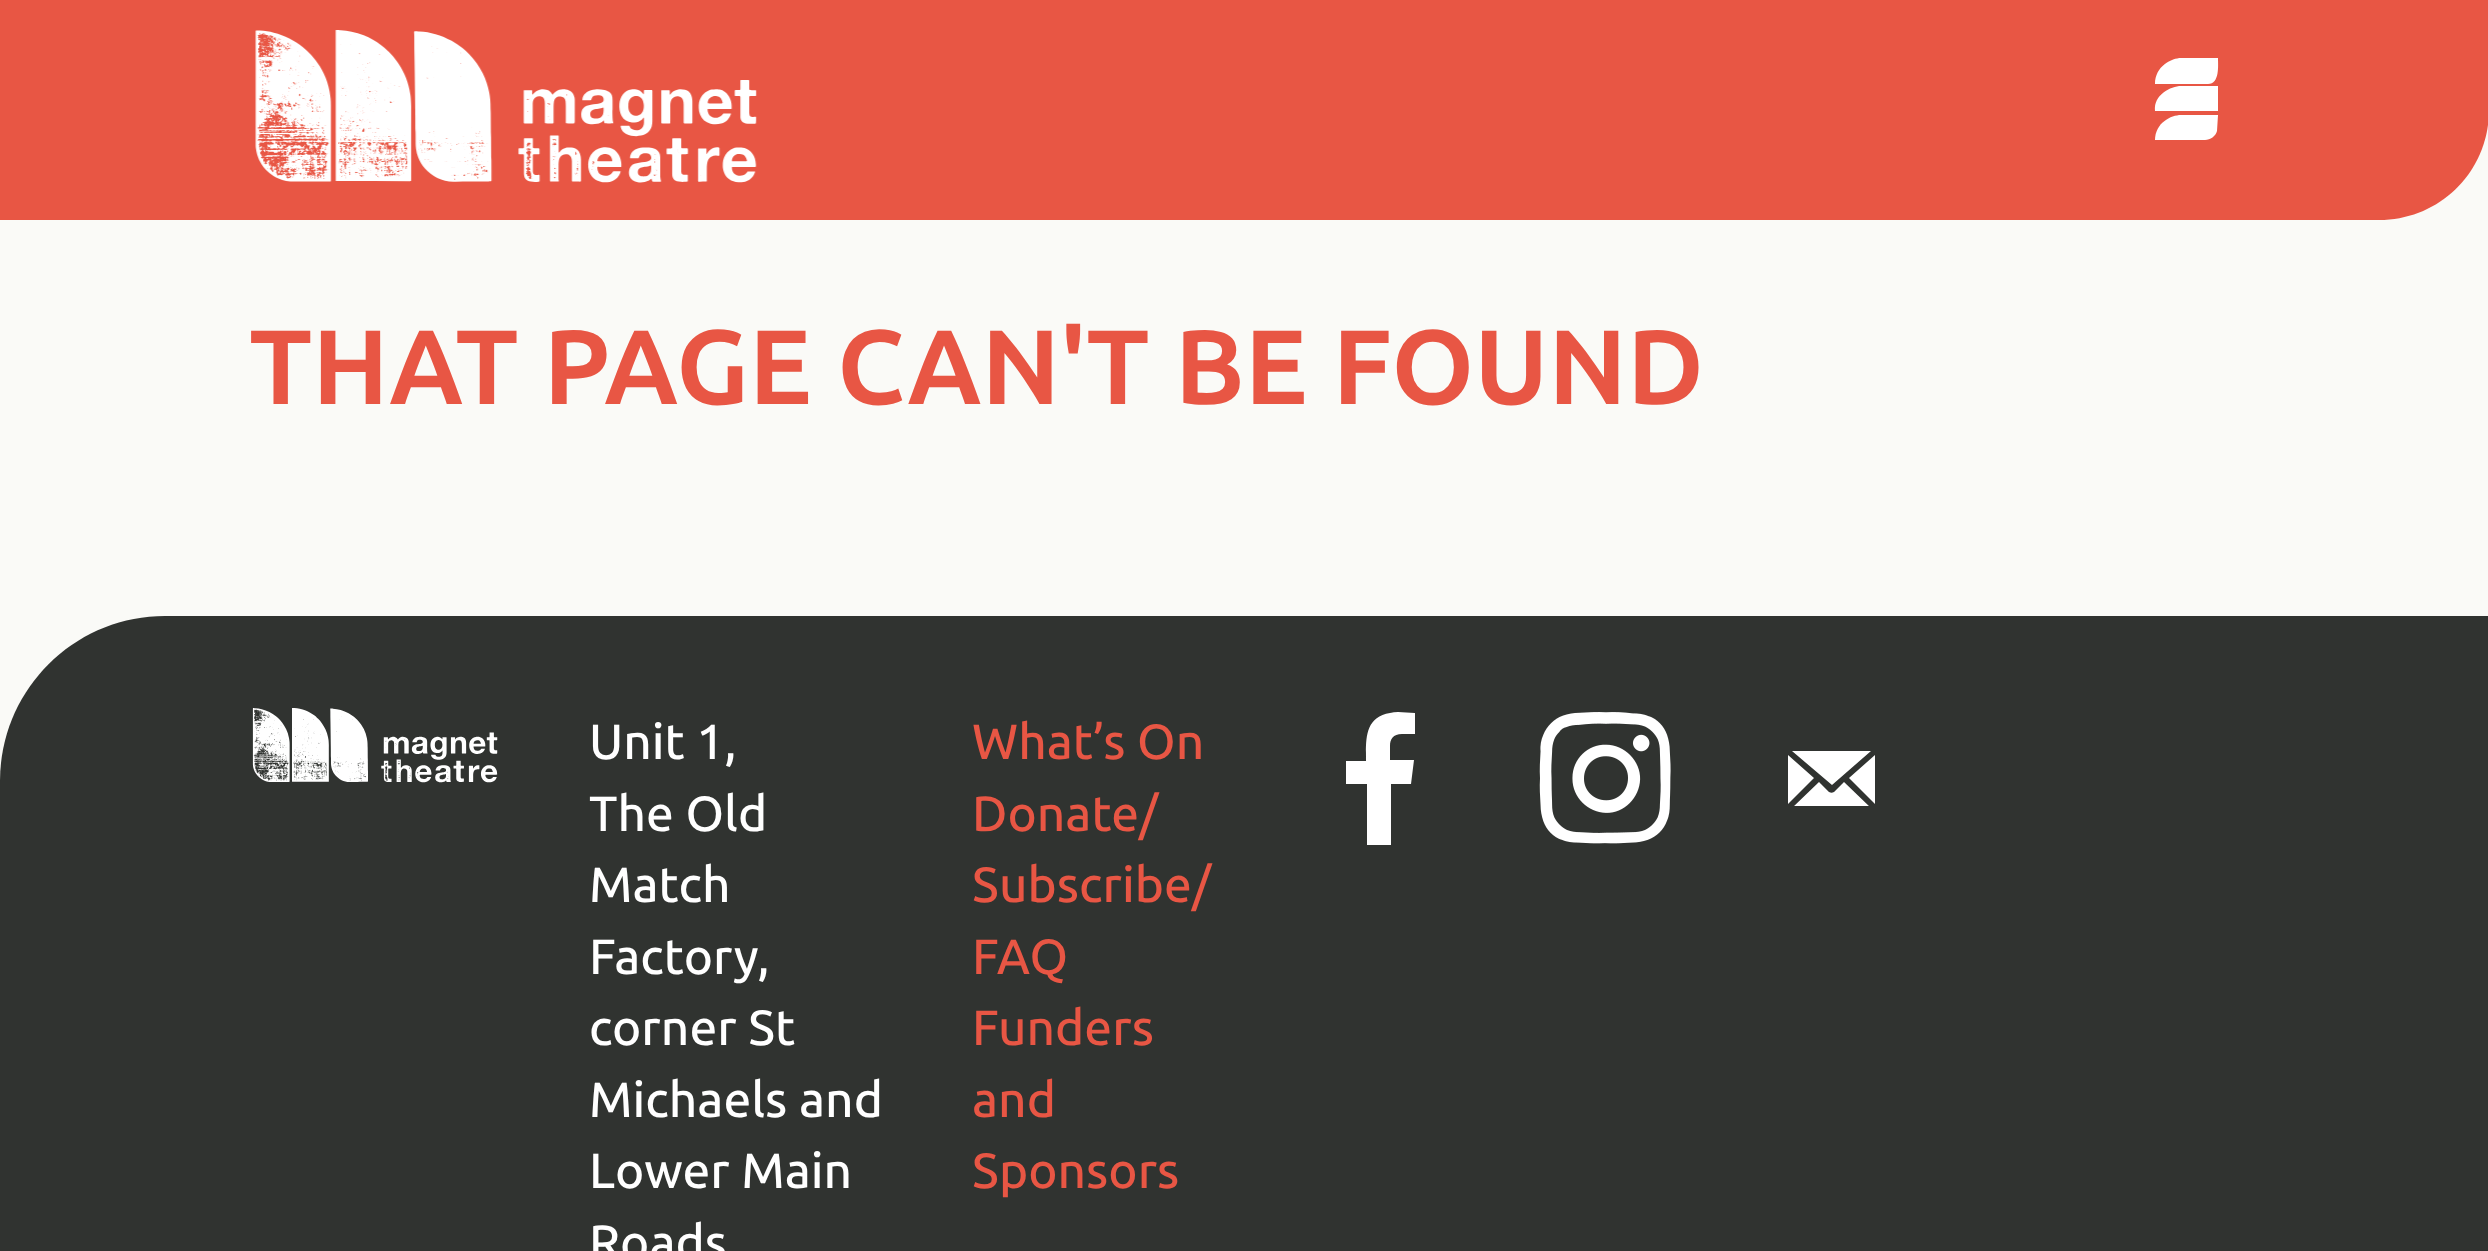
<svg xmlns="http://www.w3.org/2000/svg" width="2488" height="1251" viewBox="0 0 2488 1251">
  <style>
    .t1 { font: bold 105.6px Ubuntu; fill: #e85644; }
    .t2 { font: 500 49.5px Ubuntu; fill: #fff; }
    .t3 { font: 500 49.5px Ubuntu; fill: #e85644; }
  </style>
  <defs>
    <clipPath id="clip1"><rect x="1763" y="751" width="137" height="55"/></clipPath>
  </defs>
  <rect width="100%" height="100%" fill="#fafaf7"/>
  <path d="M0 0H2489V110C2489 171 2440 220 2379 220H0Z" fill="#e85644"/>
  <image x="255" y="30" width="502" height="153" href="images/1.png"/>
  <path d="M2205 140H2155C2155 123 2171 115 2181 115H2218L2217 131C2216 136 2210 140 2205 140Z" fill="#fff"/>
  <path d="M2218 111H2155C2153 95 2171 86 2181 86H2218Z" fill="#fff"/>
  <path d="M2208 84H2155C2155 66 2172 58 2181 58H2218C2218 65 2220 84 2208 84Z" fill="#fff"/>
  <text x="249" y="404" class="t1">THAT PAGE CAN'T BE FOUND</text>
  <path d="M165 616H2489V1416H0V781C0 690 74 616 165 616Z" fill="#303330"/>
  <image x="252" y="708" width="246" height="75" href="images/2.png"/>
  <text x="589" y="759" class="t2">Unit 1,</text>
  <text x="589" y="831" class="t2">The Old</text>
  <text x="589" y="902" class="t2">Match</text>
  <text x="589" y="974" class="t2">Factory,</text>
  <text x="589" y="1045" class="t2">corner St</text>
  <text x="589" y="1117" class="t2">Michaels and</text>
  <text x="589" y="1188" class="t2">Lower Main</text>
  <text x="589" y="1260" class="t2">Roads</text>
  <text x="972" y="759" class="t3">What’s On</text>
  <text x="972" y="831" class="t3">Donate/</text>
  <text x="972" y="902" class="t3">Subscribe/</text>
  <text x="972" y="974" class="t3">FAQ</text>
  <text x="972" y="1045" class="t3">Funders</text>
  <text x="972" y="1117" class="t3">and</text>
  <text x="972" y="1188" class="t3">Sponsors</text>
  <path d="M1391 844V784H1411L1414 760H1390V746C1390 739 1393 734 1402 734H1415V713C1406 713 1398 711 1390 713C1364 717 1366 741 1366 761H1346V784H1367V845H1391Z" fill="#fff" fill-rule="evenodd"/>
  <image x="1539" y="712" width="132" height="132" href="images/3.png"/>
  <g clip-path="url(#clip1)">
    <path d="M1792 751L1832 785L1871 751ZM1788 755V804L1814 778ZM1875 755L1849 778L1875 804ZM1819 782L1792 808H1871L1844 782L1834 792C1832 793 1831 793 1829 792Z" fill="#fff"/>
  </g>
</svg>
